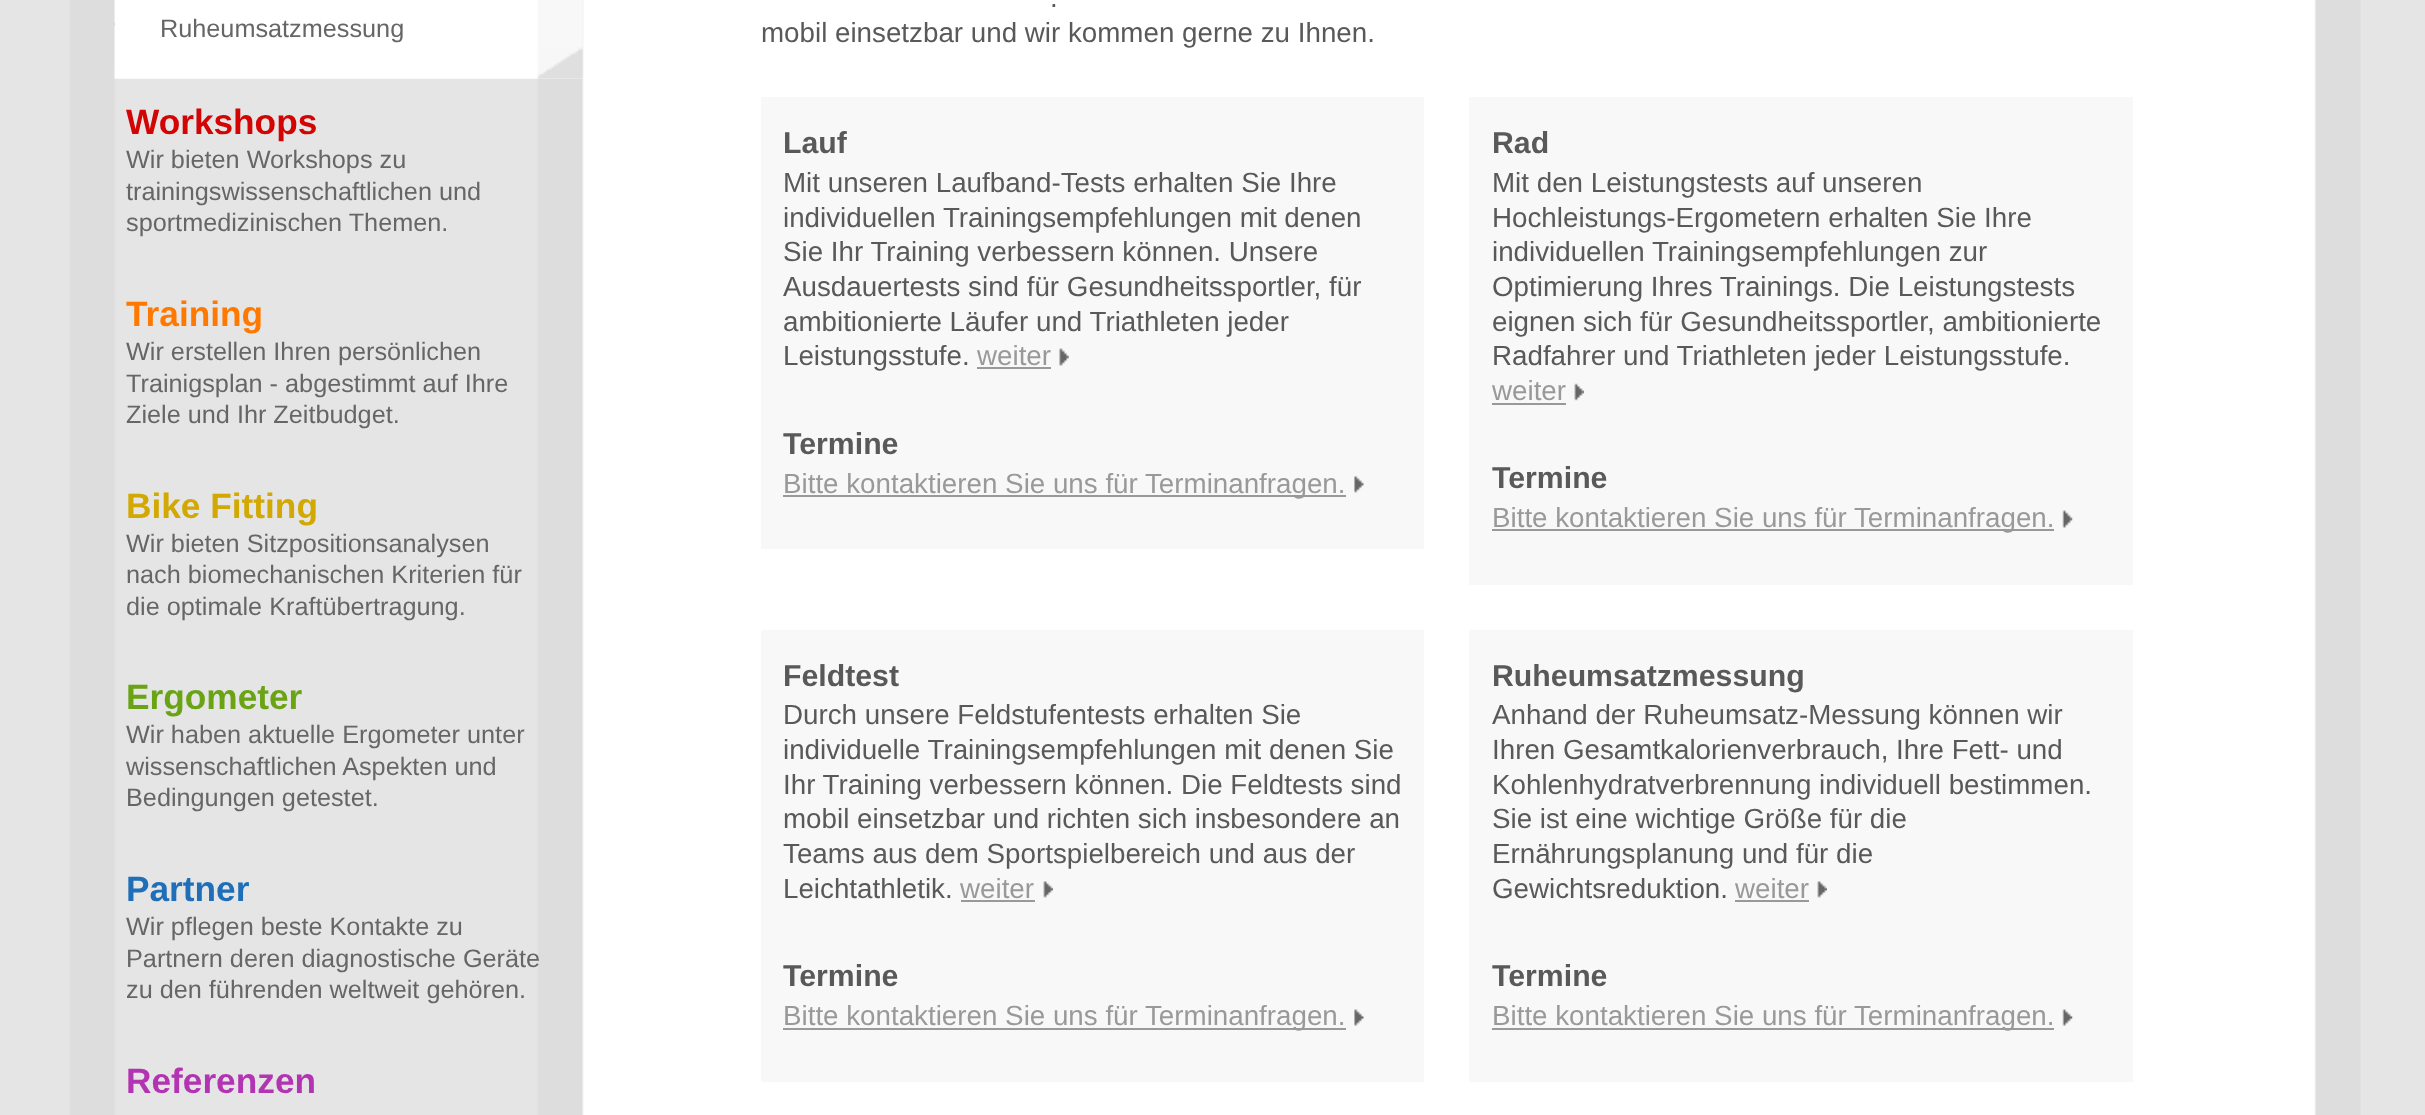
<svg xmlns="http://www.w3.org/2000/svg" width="2425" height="1115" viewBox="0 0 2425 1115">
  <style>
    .t1 { font: 25.25px Liberation Sans; fill: #666; }
    .t2 { font: bold 35.25px Liberation Sans; fill: #d20404; }
    .t3 { font: bold 35.25px Liberation Sans; fill: #ff7900; }
    .t4 { font: bold 35.25px Liberation Sans; fill: #d2a803; }
    .t5 { font: bold 35.25px Liberation Sans; fill: #6aa314; }
    .t6 { font: bold 35.25px Liberation Sans; fill: #1f6fb8; }
    .t7 { font: bold 35.25px Liberation Sans; fill: #b334b3; }
    .t8 { font: 27.75px Liberation Sans; fill: #595959; }
    .t9 { font: bold 30.25px Liberation Sans; fill: #595959; }
    .t10 { font: 27.75px Liberation Sans; fill: #999; }
  </style>
  <rect width="100%" height="100%" fill="#fff"/>
  <image x="0" y="0" width="2425" height="1115" href="images/1.png"/>
  <image x="114" y="0" width="469" height="79" href="images/2.png"/>
  <image x="114" y="0" width="468" height="47" href="images/3.png"/>
  <text x="160" y="37" class="t1">Ruheumsatzmessung</text>
  <image x="114" y="47" width="469" height="32" href="images/4.png"/>
  <text x="126" y="134" class="t2">Workshops</text>
  <text x="126" y="168" class="t1">Wir bieten Workshops zu</text>
  <text x="126" y="200" class="t1">trainingswissenschaftlichen und</text>
  <text x="126" y="231" class="t1">sportmedizinischen Themen.</text>
  <text x="126" y="326" class="t3">Training</text>
  <text x="126" y="360" class="t1">Wir erstellen Ihren persönlichen</text>
  <text x="126" y="392" class="t1">Trainigsplan - abgestimmt auf Ihre</text>
  <text x="126" y="423" class="t1">Ziele und Ihr Zeitbudget.</text>
  <text x="126" y="518" class="t4">Bike Fitting</text>
  <text x="126" y="552" class="t1">Wir bieten Sitzpositionsanalysen</text>
  <text x="126" y="583" class="t1">nach biomechanischen Kriterien für</text>
  <text x="126" y="615" class="t1">die optimale Kraftübertragung.</text>
  <text x="126" y="709" class="t5">Ergometer</text>
  <text x="126" y="743" class="t1">Wir haben aktuelle Ergometer unter</text>
  <text x="126" y="775" class="t1">wissenschaftlichen Aspekten und</text>
  <text x="126" y="806" class="t1">Bedingungen getestet.</text>
  <text x="126" y="901" class="t6">Partner</text>
  <text x="126" y="935" class="t1">Wir pflegen beste Kontakte zu</text>
  <text x="126" y="967" class="t1">Partnern deren diagnostische Geräte</text>
  <text x="126" y="998" class="t1">zu den führenden weltweit gehören.</text>
  <text x="126" y="1093" class="t7">Referenzen</text>
  <text x="1050" y="7" class="t8">.</text>
  <text x="761" y="42" class="t8">mobil einsetzbar und wir kommen gerne zu Ihnen.</text>
  <rect x="761" y="97" width="663" height="452" fill="#f8f8f8"/>
  <text x="783" y="153" class="t9">Lauf</text>
  <text x="783" y="192" class="t8">Mit unseren Laufband-Tests erhalten Sie Ihre</text>
  <text x="783" y="227" class="t8">individuellen Trainingsempfehlungen mit denen</text>
  <text x="783" y="261" class="t8">Sie Ihr Training verbessern können. Unsere</text>
  <text x="783" y="296" class="t8">Ausdauertests sind für Gesundheitssportler, für</text>
  <text x="783" y="331" class="t8">ambitionierte Läufer und Triathleten jeder</text>
  <text x="783" y="365" class="t8">Leistungsstufe.</text>
  <image x="1059" y="348" width="10" height="18" href="images/5.png"/>
  <text x="977" y="365" class="t10">weiter</text>
  <rect x="977" y="367" width="74" height="2" fill="#999"/>
  <text x="783" y="454" class="t9">Termine</text>
  <image x="1354" y="476" width="10" height="17" href="images/6.png"/>
  <rect x="783" y="495" width="563" height="2" fill="#999"/>
  <text x="783" y="493" class="t10">Bitte kontaktieren Sie uns für Terminanfragen.</text>
  <rect x="1469" y="97" width="664" height="488" fill="#f8f8f8"/>
  <text x="1492" y="153" class="t9">Rad</text>
  <text x="1492" y="192" class="t8">Mit den Leistungstests auf unseren</text>
  <text x="1492" y="227" class="t8">Hochleistungs-Ergometern erhalten Sie Ihre</text>
  <text x="1492" y="261" class="t8">individuellen Trainingsempfehlungen zur</text>
  <text x="1492" y="296" class="t8">Optimierung Ihres Trainings. Die Leistungstests</text>
  <text x="1492" y="331" class="t8">eignen sich für Gesundheitssportler, ambitionierte</text>
  <text x="1492" y="365" class="t8">Radfahrer und Triathleten jeder Leistungsstufe.</text>
  <image x="1574" y="383" width="10" height="18" href="images/7.png"/>
  <text x="1492" y="400" class="t10">weiter</text>
  <rect x="1492" y="403" width="74" height="2" fill="#999"/>
  <text x="1492" y="488" class="t9">Termine</text>
  <image x="2062" y="510" width="11" height="18" href="images/8.png"/>
  <rect x="1492" y="529" width="562" height="2" fill="#999"/>
  <text x="1492" y="527" class="t10">Bitte kontaktieren Sie uns für Terminanfragen.</text>
  <rect x="761" y="630" width="663" height="452" fill="#f8f8f8"/>
  <text x="783" y="686" class="t9">Feldtest</text>
  <text x="783" y="724" class="t8">Durch unsere Feldstufentests erhalten Sie</text>
  <text x="783" y="759" class="t8">individuelle Trainingsempfehlungen mit denen Sie</text>
  <text x="783" y="794" class="t8">Ihr Training verbessern können. Die Feldtests sind</text>
  <text x="783" y="828" class="t8">mobil einsetzbar und richten sich insbesondere an</text>
  <text x="783" y="863" class="t8">Teams aus dem Sportspielbereich und aus der</text>
  <text x="783" y="898" class="t8">Leichtathletik.</text>
  <image x="1043" y="881" width="10" height="17" href="images/9.png"/>
  <text x="960" y="898" class="t10">weiter</text>
  <rect x="961" y="900" width="74" height="2" fill="#999"/>
  <text x="783" y="986" class="t9">Termine</text>
  <image x="1354" y="1009" width="10" height="17" href="images/10.png"/>
  <rect x="783" y="1028" width="563" height="2" fill="#999"/>
  <text x="783" y="1025" class="t10">Bitte kontaktieren Sie uns für Terminanfragen.</text>
  <rect x="1469" y="630" width="664" height="452" fill="#f8f8f8"/>
  <text x="1492" y="686" class="t9">Ruheumsatzmessung</text>
  <text x="1492" y="724" class="t8">Anhand der Ruheumsatz-Messung können wir</text>
  <text x="1492" y="759" class="t8">Ihren Gesamtkalorienverbrauch, Ihre Fett- und</text>
  <text x="1492" y="794" class="t8">Kohlenhydratverbrennung individuell bestimmen.</text>
  <text x="1492" y="828" class="t8">Sie ist eine wichtige Größe für die</text>
  <text x="1492" y="863" class="t8">Ernährungsplanung und für die</text>
  <text x="1492" y="898" class="t8">Gewichtsreduktion.</text>
  <image x="1817" y="881" width="10" height="17" href="images/9.png"/>
  <text x="1735" y="898" class="t10">weiter</text>
  <rect x="1735" y="900" width="74" height="2" fill="#999"/>
  <text x="1492" y="986" class="t9">Termine</text>
  <image x="2062" y="1009" width="11" height="17" href="images/11.png"/>
  <rect x="1492" y="1028" width="562" height="2" fill="#999"/>
  <text x="1492" y="1025" class="t10">Bitte kontaktieren Sie uns für Terminanfragen.</text>
</svg>
